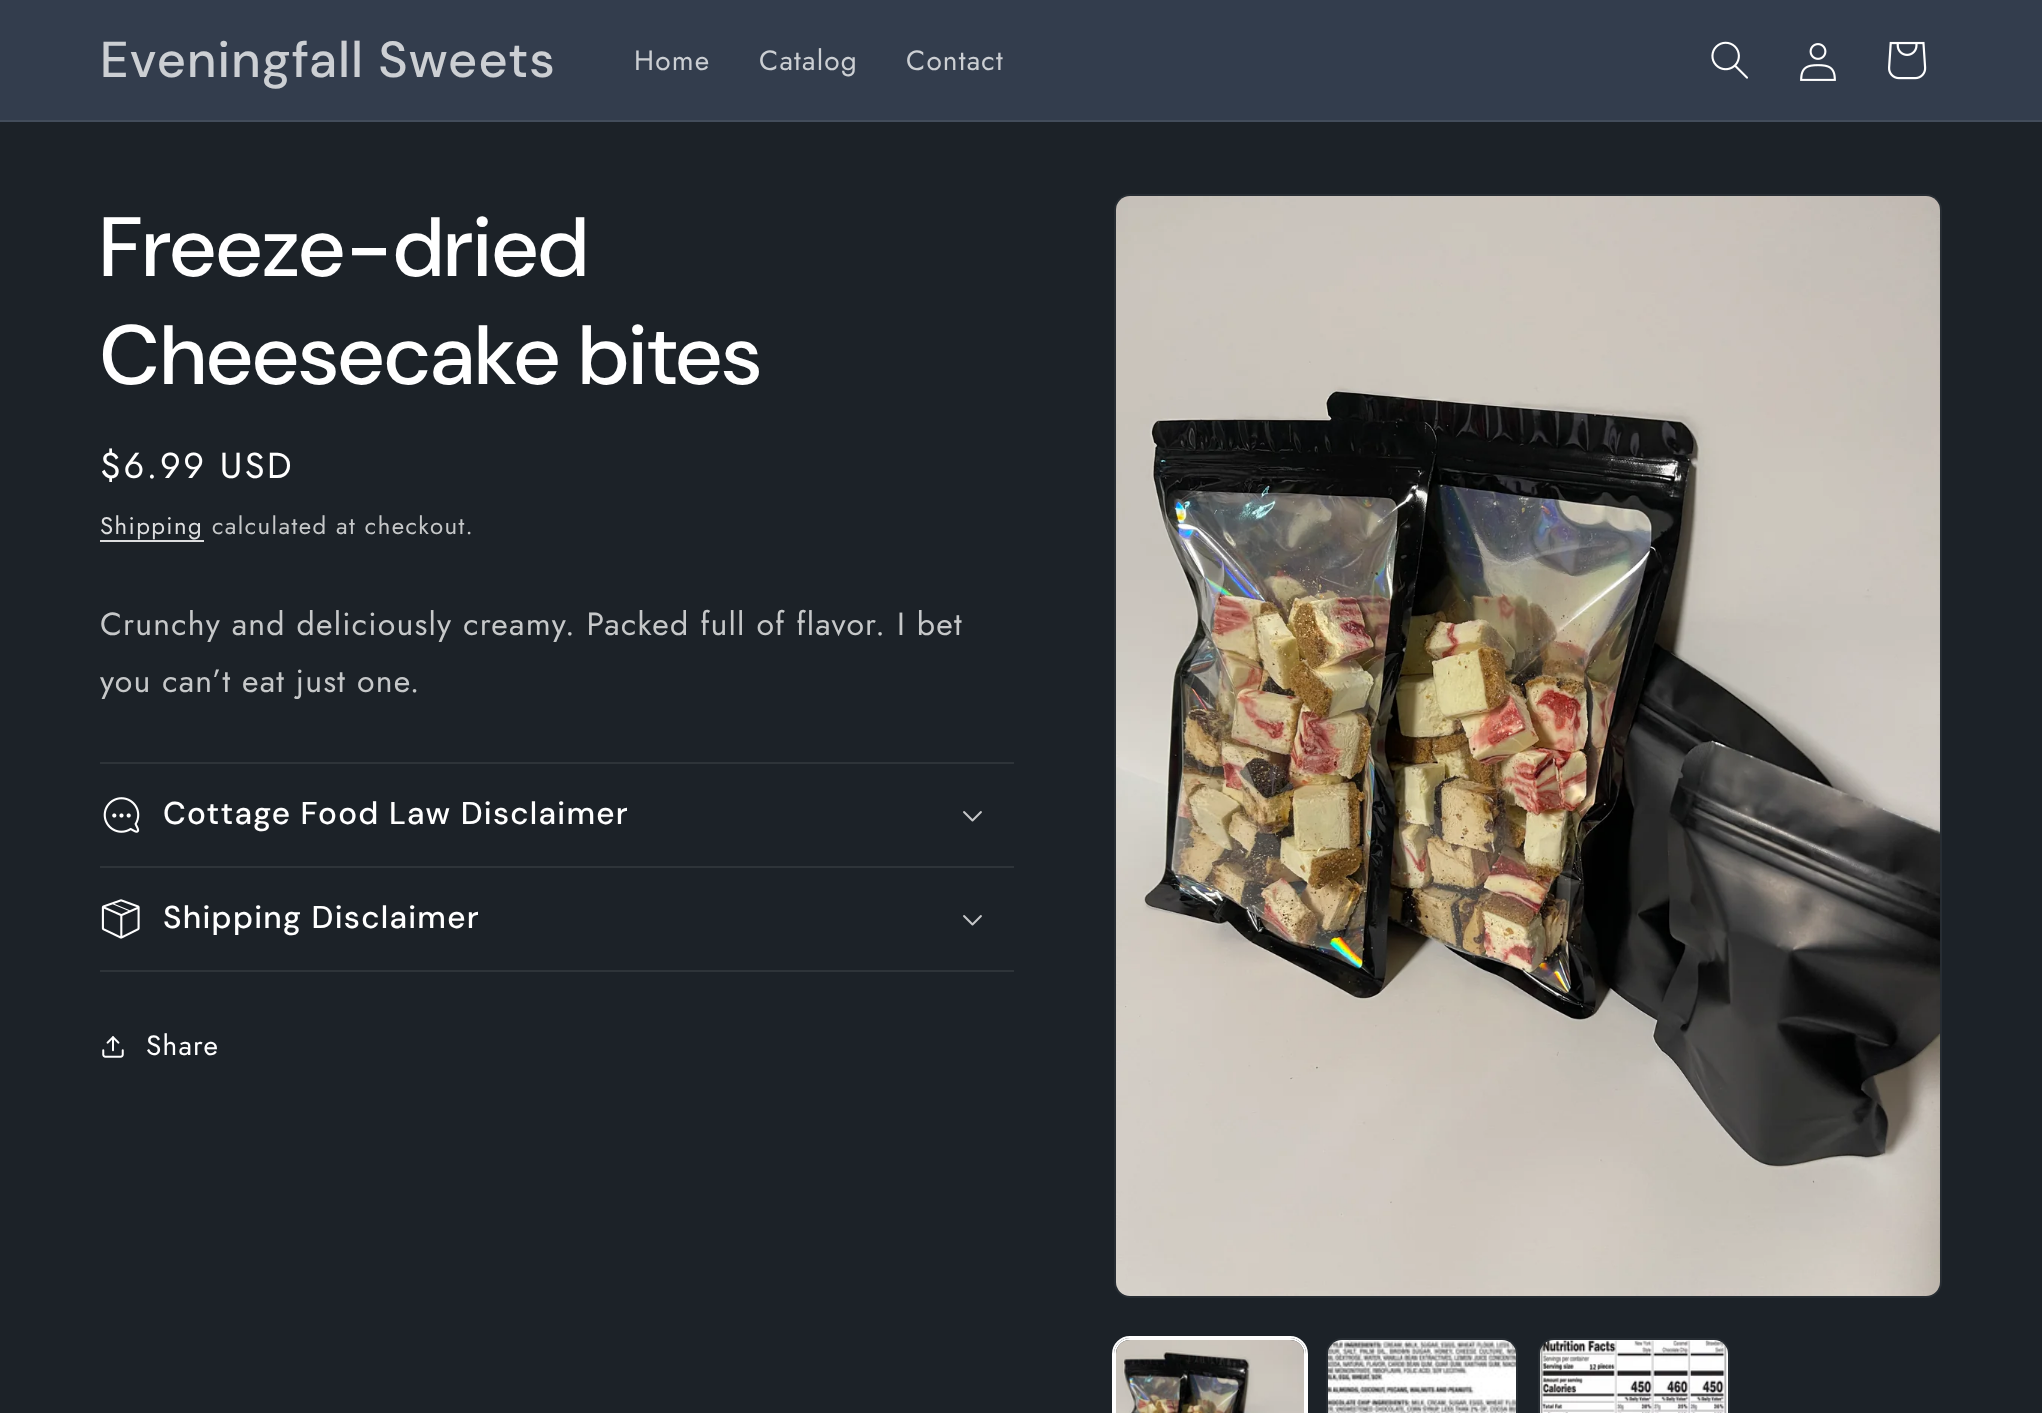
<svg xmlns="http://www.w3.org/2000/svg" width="2042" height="1413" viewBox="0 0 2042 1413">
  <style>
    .t1 { font: 500 50.5px 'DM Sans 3'; letter-spacing: 1.25px; fill: #cccfd3; }
    .t2 { font: 28px Jost; letter-spacing: 1.2px; fill: #cccfd3; }
    .t3 { font: 500 84px DM Sans; letter-spacing: 1.25px; fill: #fff; }
    .t4 { font: 36px Jost; letter-spacing: 2.5px; fill: #fff; }
    .t5 { font: 24px Jost; letter-spacing: 1.4px; fill: #dddedf; }
    .t6 { font: 24px Jost; letter-spacing: 1.4px; fill: #c6c8c9; }
    .t7 { font: 32px Jost; letter-spacing: 1.2px; fill: #c6c8c9; }
    .t8 { font: 500 31.5px 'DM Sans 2'; letter-spacing: 1.25px; fill: #fff; }
    .t9 { font: 28px Jost; letter-spacing: 1.2px; fill: #fff; }
  </style>
  <rect width="100%" height="100%" fill="#1c2228"/>
  <rect x="0" y="0" width="2042" height="120" fill="#333d4d"/>
  <rect x="0" y="120" width="2042" height="2" fill="#434d5b"/>
  <text x="100" y="77" class="t1">Eveningfall Sweets</text>
  <text x="634" y="70" class="t2">Home</text>
  <text x="759" y="70" class="t2">Catalog</text>
  <text x="906" y="70" class="t2">Contact</text>
  <image x="1711" y="41" width="37" height="38" href="images/1.png"/>
  <image x="1800" y="43" width="36" height="38" href="images/2.png"/>
  <image x="1888" y="41" width="39" height="39" href="images/3.png"/>
  <text x="100" y="276" class="t3">Freeze-dried</text>
  <text x="100" y="384" class="t3">Cheesecake bites</text>
  <text x="100" y="478" class="t4">$6.99 USD</text>
  <text x="100" y="534" class="t5">Shipping</text>
  <rect x="100" y="540" width="104" height="2" fill="#dddedf"/>
  <text x="212" y="534" class="t6">calculated at checkout.</text>
  <text x="100" y="635" class="t7">Crunchy and deliciously creamy. Packed full of flavor. I bet</text>
  <text x="100" y="692" class="t7">you can’t eat just one.</text>
  <rect x="100" y="762" width="914" height="2" fill="#2e3439"/>
  <rect x="100" y="866" width="914" height="2" fill="#2e3439"/>
  <image x="103" y="797" width="37" height="36" href="images/4.png"/>
  <text x="163" y="824" class="t8">Cottage Food Law Disclaimer</text>
  <image x="963" y="811" width="19" height="11" href="images/5.png"/>
  <rect x="100" y="970" width="914" height="2" fill="#2e3439"/>
  <image x="101" y="899" width="39" height="40" href="images/6.png"/>
  <text x="163" y="928" class="t8">Shipping Disclaimer</text>
  <image x="963" y="915" width="19" height="11" href="images/5.png"/>
  <image x="102" y="1036" width="22" height="22" href="images/7.png"/>
  <text x="146" y="1055" class="t9">Share</text>
  <rect x="1115" y="195" width="826" height="1102" rx="15" fill="none" stroke="#272d33" stroke-width="2"/>
  <image x="1116" y="196" width="824" height="1100" href="images/8.png"/>
  <rect x="1113" y="1337" width="194" height="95" rx="17" fill="none" stroke="#fff" stroke-width="2"/>
  <rect x="1115" y="1339" width="190" height="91" rx="15" fill="none" stroke="#fff" stroke-width="2"/>
  <image x="1116" y="1340" width="188" height="73" href="images/9.png"/>
  <rect x="1327" y="1339" width="190" height="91" rx="15" fill="none" stroke="#272d33" stroke-width="2"/>
  <image x="1328" y="1340" width="188" height="73" href="images/10.png"/>
  <rect x="1539" y="1339" width="190" height="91" rx="15" fill="none" stroke="#272d33" stroke-width="2"/>
  <image x="1540" y="1340" width="188" height="73" href="images/11.png"/>
</svg>
